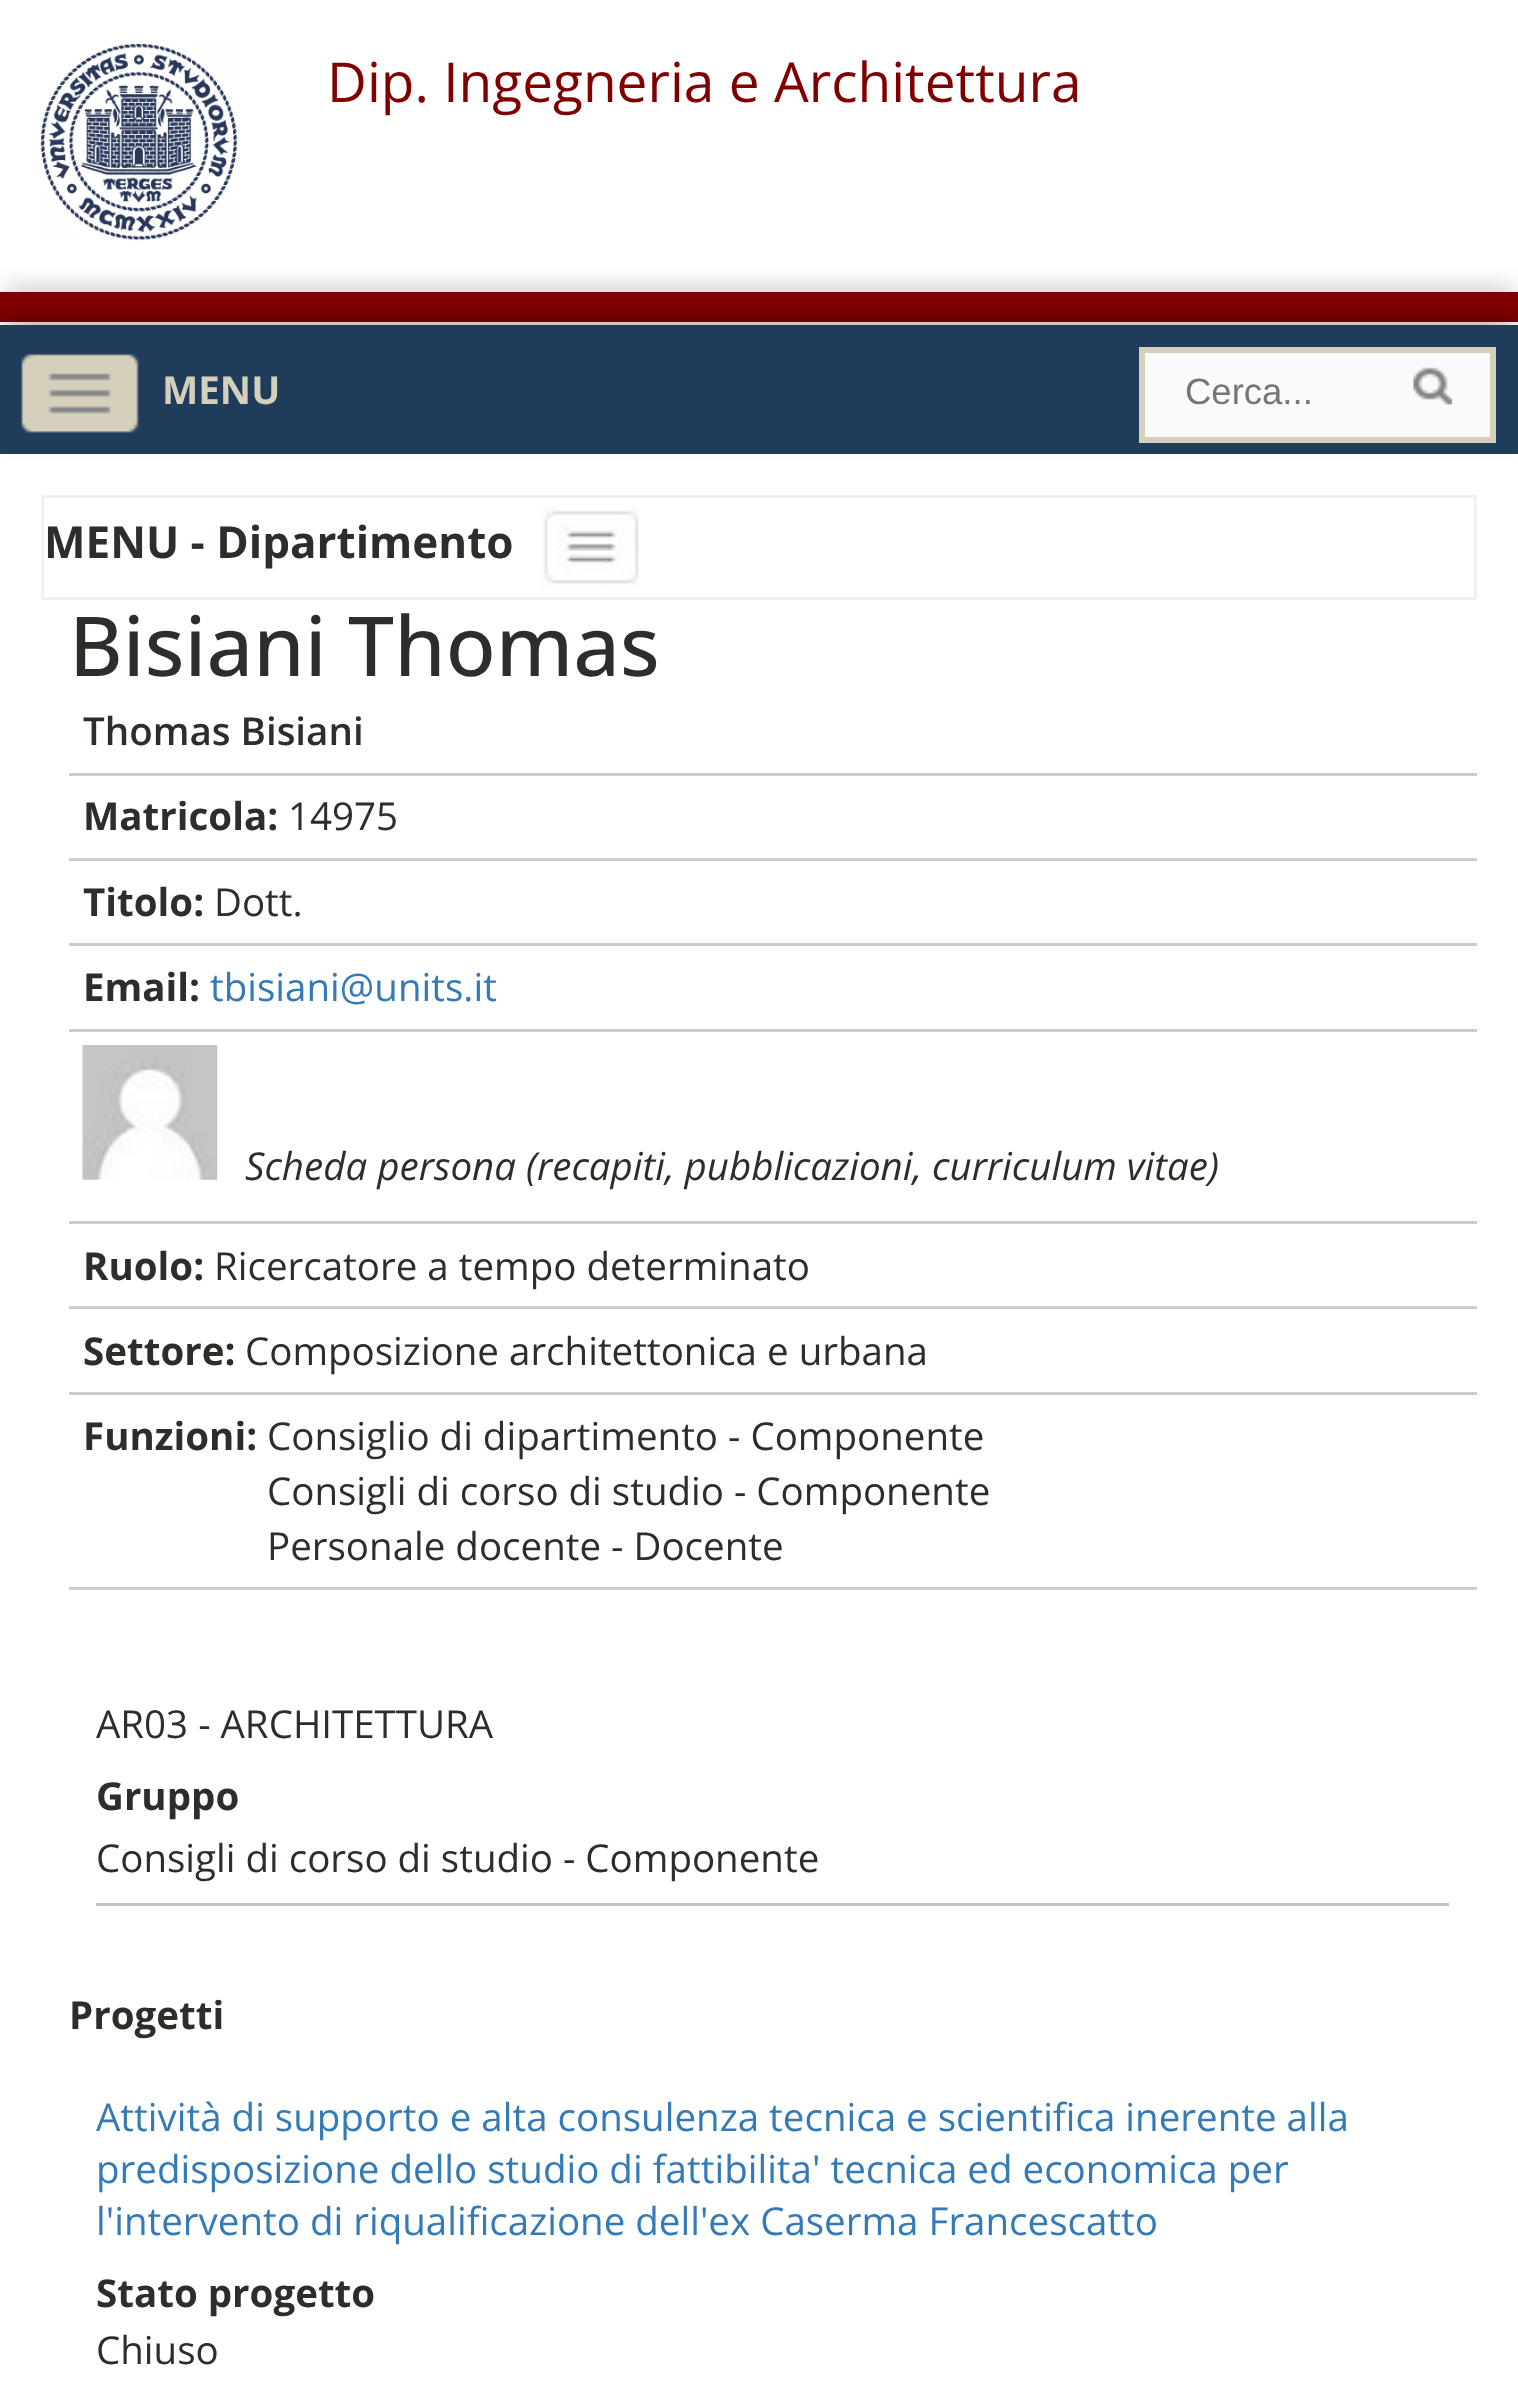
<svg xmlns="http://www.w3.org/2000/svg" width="1518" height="2387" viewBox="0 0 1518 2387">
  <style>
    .t1 { font: 55px Open Sans; fill: #800000; }
    .t2 { font: bold 38.5px Open Sans; fill: #d4d0bc; }
    .t3 { font: 36.5px Liberation Sans; fill: #757575; }
    .t4 { font: bold 44px Open Sans; fill: #2e2d29; }
    .t5 { font: 500 82.5px Open Sans; fill: #2e2d29; }
    .t6 { font: 600 38.5px Open Sans; fill: #2e2d29; }
    .t7 { font: bold 38.5px Open Sans; fill: #2e2d29; }
    .t8 { font: 38.5px Open Sans; fill: #2e2d29; }
    .t9 { font: 38.5px Open Sans; fill: #337ab7; }
    .t10 { font: italic 38.5px Open Sans; fill: #2e2d29; }
  </style>
  <rect width="100%" height="100%" fill="#fff"/>
  <image x="40" y="41" width="198" height="200" href="images/1.png"/>
  <text x="327" y="102" class="t1">Dip. Ingegneria e Architettura</text>
  <rect x="6" y="286" width="1507" height="19" fill="#00000033" filter="blur(11px)"/>
  <rect x="0" y="292" width="1518" height="30" fill="#800000"/>
  <rect x="6" y="319" width="1507" height="118" fill="#0000004d" filter="blur(11px)"/>
  <rect x="0" y="325" width="1518" height="129" fill="#1f3d5a"/>
  <image x="21" y="354" width="118" height="79" href="images/2.png"/>
  <text x="162" y="404" class="t2">MENU</text>
  <rect x="1142" y="350" width="351" height="90" fill="#fafafa" stroke="#d4d0bc" stroke-width="6"/>
  <text x="1185" y="404" class="t3">Cerca...</text>
  <image x="1413" y="367" width="39" height="38" href="images/3.png"/>
  <rect x="42.5" y="496.5" width="1433" height="102" fill="none" stroke="#f1f1f1" stroke-width="3"/>
  <text x="44" y="558" class="t4">MENU - Dipartimento</text>
  <image x="539" y="506" width="102" height="82" href="images/4.png"/>
  <text x="69" y="676" class="t5">Bisiani Thomas</text>
  <rect x="69" y="773" width="1408" height="3" fill="#ccc"/>
  <text x="83" y="745" class="t6">Thomas Bisiani</text>
  <rect x="69" y="858" width="1408" height="3" fill="#ccc"/>
  <text x="83" y="830" class="t7">Matricola:</text>
  <text x="288" y="830" class="t8">14975</text>
  <rect x="69" y="943" width="1408" height="3" fill="#ccc"/>
  <text x="83" y="916" class="t7">Titolo:</text>
  <text x="214" y="916" class="t8">Dott.</text>
  <rect x="69" y="1029" width="1408" height="3" fill="#ccc"/>
  <text x="83" y="1001" class="t7">Email:</text>
  <text x="210" y="1001" class="t9">tbisiani@units.it</text>
  <rect x="69" y="1221" width="1408" height="3" fill="#ccc"/>
  <image x="82" y="1045" width="136" height="135" href="images/5.png"/>
  <text x="245" y="1180" class="t10">Scheda persona (recapiti, pubblicazioni, curriculum vitae)</text>
  <rect x="69" y="1306" width="1408" height="3" fill="#ccc"/>
  <text x="83" y="1280" class="t7">Ruolo:</text>
  <text x="214" y="1280" class="t8">Ricercatore a tempo determinato</text>
  <rect x="69" y="1392" width="1408" height="3" fill="#ccc"/>
  <text x="83" y="1365" class="t7">Settore:</text>
  <text x="245" y="1365" class="t8">Composizione architettonica e urbana</text>
  <rect x="69" y="1587" width="1408" height="3" fill="#ccc"/>
  <text x="83" y="1450" class="t7">Funzioni:</text>
  <text x="267" y="1450" class="t8">Consiglio di dipartimento - Componente</text>
  <text x="267" y="1505" class="t8">Consigli di corso di studio - Componente</text>
  <text x="267" y="1560" class="t8">Personale docente - Docente</text>
  <rect x="96" y="1903" width="1353" height="3" fill="#c2c2c2"/>
  <text x="96" y="1738" class="t8">AR03 - ARCHITETTURA</text>
  <text x="96" y="1810" class="t7">Gruppo</text>
  <text x="96" y="1872" class="t8">Consigli di corso di studio - Componente</text>
  <text x="69" y="2029" class="t7">Progetti</text>
  <text x="96" y="2131" class="t9">Attività di supporto e alta consulenza tecnica e scientifica inerente alla</text>
  <text x="96" y="2183" class="t9">predisposizione dello studio di fattibilita' tecnica ed economica per</text>
  <text x="96" y="2235" class="t9">l'intervento di riqualificazione dell'ex Caserma Francescatto</text>
  <text x="96" y="2307" class="t7">Stato progetto</text>
  <text x="96" y="2364" class="t8">Chiuso</text>
</svg>
